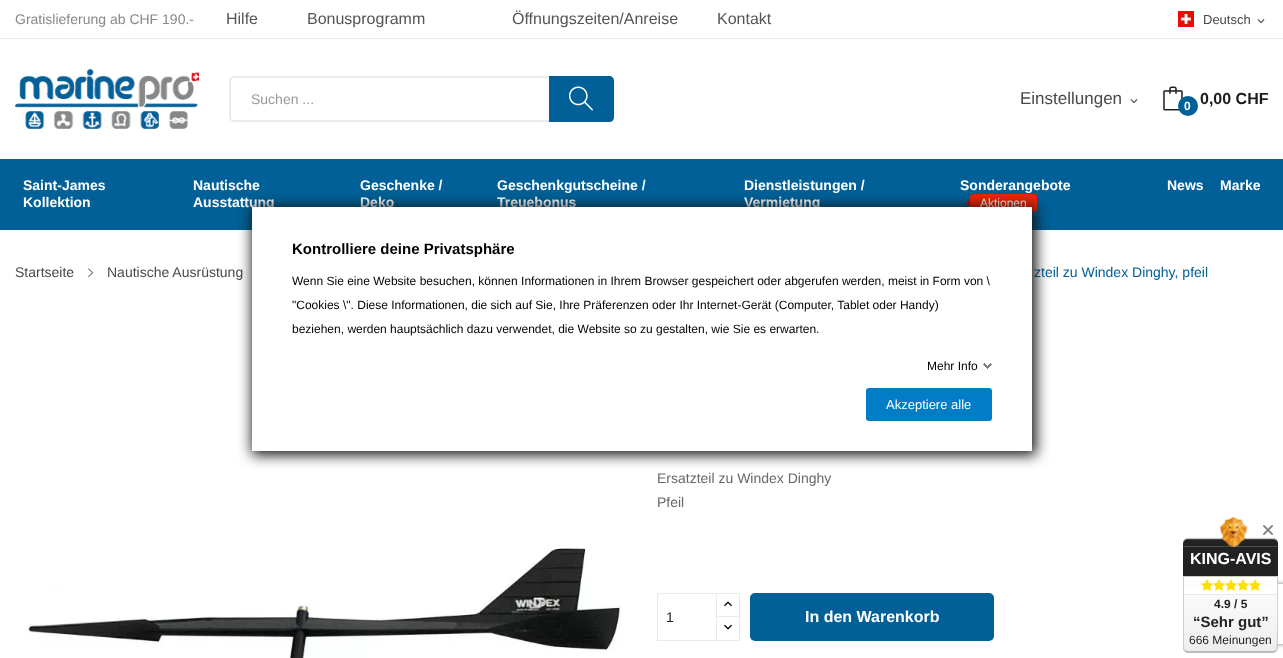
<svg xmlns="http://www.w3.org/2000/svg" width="1283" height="658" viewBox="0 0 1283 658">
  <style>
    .t1 { font: 14px Liberation Sans; fill: #888; }
    .t2 { font: 16px Liberation Sans; fill: #555; }
    .t3 { font: 13px Liberation Sans; fill: #47494a; }
    .t4 { font: 14px Liberation Sans; fill: #999; }
    .t5 { font: 17px Liberation Sans; fill: #47494a; }
    .t6 { font: bold 12px Liberation Sans; fill: #fff; }
    .t7 { font: bold 16px Liberation Sans; fill: #1d1d1d; }
    .t8 { font: bold 14px Liberation Sans; fill: #fff; }
    .t9 { font: 12px Liberation Sans; fill: #fff; }
    .t10 { font: 14px Liberation Sans; fill: #47494a; }
    .t11 { font: 14px Liberation Sans; fill: #006097; }
    .t12 { font: 14px Liberation Sans; fill: #69696c; }
    .t13 { font: 14px Liberation Sans; fill: #232323; }
    .t14 { font: bold 16px Liberation Sans; fill: #fff; }
    .t15 { font: bold 15px Liberation Sans; fill: #000; }
    .t16 { font: 12px Liberation Sans; fill: #000; }
    .t17 { font: 13px Liberation Sans; fill: #fff; }
    .t18 { font: bold 12px Liberation Sans; fill: #232323; }
    .t19 { font: bold 15px Liberation Sans; fill: #232323; }
    .t20 { font: 12px Liberation Sans; fill: #232323; }
  </style>
  <defs>
    <clipPath id="clip1"><path d="M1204 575H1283V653H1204ZM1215 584H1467C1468 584 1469 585 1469 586V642C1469 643 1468 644 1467 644H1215C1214 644 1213 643 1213 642V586C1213 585 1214 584 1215 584Z" clip-rule="evenodd"/></clipPath>
    <linearGradient id="g1" gradientUnits="userSpaceOnUse" x1="1231" y1="577" x2="1231" y2="651"><stop offset="0" stop-color="#fff"/><stop offset="1" stop-color="#eee"/></linearGradient>
  </defs>
  <rect width="100%" height="100%" fill="#fff"/>
  <rect x="0" y="38" width="1283" height="1" fill="#ebebeb"/>
  <text x="15" y="24" class="t1">Gratislieferung ab CHF 190.-</text>
  <text x="226" y="24" class="t2">Hilfe</text>
  <text x="307" y="24" class="t2">Bonusprogramm</text>
  <text x="512" y="24" class="t2">Öffnungszeiten/Anreise</text>
  <text x="717" y="24" class="t2">Kontakt</text>
  <image x="1178" y="11" width="16" height="16" href="images/1.png"/>
  <text x="1203" y="24" class="t3">Deutsch</text>
  <image x="1257" y="19" width="8" height="5" href="images/2.png"/>
  <image x="15" y="69" width="184" height="60" href="images/3.png"/>
  <rect x="230" y="77" width="383" height="44" rx="4" fill="none" stroke="#ebebeb" stroke-width="2"/>
  <text x="251" y="104" class="t4">Suchen ...</text>
  <path d="M549 76H609C612 76 614 78 614 81V117C614 120 612 122 609 122H549Z" fill="#006097"/>
  <image x="568" y="86" width="25" height="25" href="images/4.png"/>
  <text x="1020" y="104" class="t5">Einstellungen</text>
  <image x="1130" y="99" width="8" height="5" href="images/2.png"/>
  <image x="1163" y="86" width="20" height="25" href="images/5.png"/>
  <circle cx="1188" cy="106" r="10" fill="#006097"/>
  <text x="1184" y="110" class="t6">0</text>
  <text x="1200" y="104" class="t7">0,00 CHF</text>
  <rect x="0" y="159" width="1283" height="71" fill="#006097"/>
  <text x="23" y="190" class="t8">Saint-James</text>
  <text x="23" y="207" class="t8">Kollektion</text>
  <text x="193" y="190" class="t8">Nautische</text>
  <text x="193" y="207" class="t8">Ausstattung</text>
  <text x="360" y="190" class="t8">Geschenke /</text>
  <text x="360" y="207" class="t8">Deko</text>
  <text x="497" y="190" class="t8">Geschenkgutscheine /</text>
  <text x="497" y="207" class="t8">Treuebonus</text>
  <text x="744" y="190" class="t8">Dienstleistungen /</text>
  <text x="744" y="207" class="t8">Vermietung</text>
  <text x="960" y="190" class="t8">Sonderangebote</text>
  <rect x="970" y="194" width="67" height="18" rx="3" fill="#eb2606"/>
  <path d="M970 199V207L966 203Z" fill="#c40316"/>
  <text x="980" y="207" class="t9">Aktionen</text>
  <text x="1167" y="190" class="t8">News</text>
  <text x="1220" y="190" class="t8">Marke</text>
  <text x="15" y="277" class="t10">Startseite</text>
  <image x="88" y="268" width="6" height="9" href="images/6.png"/>
  <text x="107" y="277" class="t10">Nautische Ausrüstung</text>
  <text x="1034" y="277" class="t11">zteil zu Windex Dinghy, pfeil</text>
  <image x="27" y="547" width="594" height="111" href="images/7.png"/>
  <text x="657" y="483" class="t12">Ersatzteil zu Windex Dinghy</text>
  <text x="657" y="507" class="t12">Pfeil</text>
  <rect x="716.5" y="593.5" width="23" height="24" fill="none" stroke="#ebebeb"/>
  <rect x="717" y="617" width="22" height="1" fill="#fff"/>
  <rect x="716.5" y="616.5" width="23" height="24" fill="none" stroke="#ebebeb"/>
  <rect x="657.5" y="593.5" width="59" height="47" fill="none" stroke="#ebebeb"/>
  <text x="666" y="622" class="t13">1</text>
  <image x="724" y="601" width="8" height="6" href="images/8.png"/>
  <image x="724" y="624" width="8" height="6" href="images/9.png"/>
  <rect x="750" y="593" width="244" height="48" rx="5" fill="#006097"/>
  <text x="805" y="622" class="t14">In den Warenkorb</text>
  <g clip-path="url(#clip1)">
    <rect x="1213" y="584" width="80" height="60" rx="2" fill="#808080" filter="blur(2.5px)"/>
  </g>
  <rect x="252" y="207" width="784" height="248" fill="#121212" filter="blur(7px)"/>
  <rect x="252" y="207" width="780" height="244" fill="#fff"/>
  <text x="292" y="254" class="t15">Kontrolliere deine Privatsphäre</text>
  <text x="292" y="285" class="t16">Wenn Sie eine Website besuchen, können Informationen in Ihrem Browser gespeichert oder abgerufen werden, meist in Form von \</text>
  <text x="292" y="309" class="t16">"Cookies \". Diese Informationen, die sich auf Sie, Ihre Präferenzen oder Ihr Internet-Gerät (Computer, Tablet oder Handy)</text>
  <text x="292" y="333" class="t16">beziehen, werden hauptsächlich dazu verwendet, die Website so zu gestalten, wie Sie es erwarten.</text>
  <text x="927" y="370" class="t16">Mehr Info</text>
  <image x="983" y="363" width="9" height="6" href="images/10.png"/>
  <rect x="866" y="388" width="126" height="33" rx="3" fill="#007dc6"/>
  <text x="886" y="409" class="t17">Akzeptiere alle</text>
  <image x="1183" y="516" width="95" height="31" href="images/11.png"/>
  <rect x="1183" y="547" width="95" height="29" fill="#222"/>
  <text x="1190" y="564" class="t14">KING-AVIS</text>
  <path d="M1184 577H1277V648C1277 650 1275 651 1273 651H1188C1186 651 1184 650 1184 648Z" fill="url(#g1)"/>
  <path d="M1183 576L1184 577H1277L1278 576Z" fill="#ccc"/>
  <path d="M1278 576L1277 577C1277 585 1278 648 1276 650L1277 651L1278 648Z" fill="#ccc"/>
  <path d="M1188 653H1274L1277 651L1276 650L1273 651H1188L1185 650L1184 651C1185 652 1186 653 1188 653Z" fill="#bbb"/>
  <path d="M1184 577L1183 576V648C1183 649 1183 650 1184 651L1185 650L1184 648Z" fill="#ccc"/>
  <image x="1263" y="525" width="10" height="10" href="images/12.png"/>
  <rect x="1184" y="588" width="93" height="6" fill="#fff"/>
  <rect x="1184" y="594" width="93" height="1" fill="#e9e9e9"/>
  <image x="1201" y="579" width="12" height="12" href="images/13.png"/>
  <image x="1213" y="579" width="12" height="12" href="images/13.png"/>
  <image x="1225" y="579" width="12" height="12" href="images/14.png"/>
  <image x="1237" y="579" width="12" height="12" href="images/14.png"/>
  <image x="1249" y="579" width="12" height="12" href="images/14.png"/>
  <text x="1214" y="608" class="t18">4.9 / 5</text>
  <text x="1193" y="627" class="t19">“Sehr gut”</text>
  <text x="1189" y="644" class="t20">666 Meinungen</text>
</svg>
